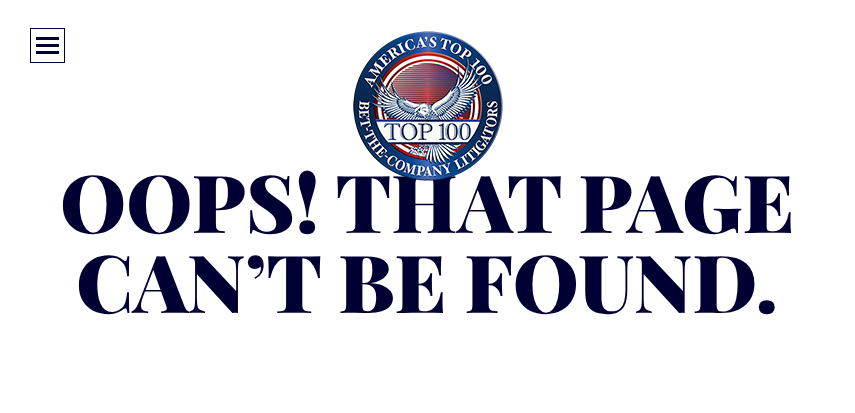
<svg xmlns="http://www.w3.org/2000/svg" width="855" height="413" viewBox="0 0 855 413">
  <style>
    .t1 { font: 900 80px Playfair Display; fill: #003; }
  </style>
  <rect width="100%" height="100%" fill="#fff"/>
  <rect x="30.5" y="28.5" width="34" height="34" fill="none" stroke="#003"/>
  <rect x="36" y="37" width="23" height="3" fill="#003"/>
  <rect x="36" y="44" width="23" height="3" fill="#003"/>
  <rect x="36" y="51" width="23" height="3" fill="#003"/>
  <text x="60" y="233" class="t1">OOPS! THAT PAGE</text>
  <image x="353" y="31" width="150" height="150" href="images/1.png"/>
  <text x="76" y="313" class="t1">CAN’T BE FOUND.</text>
</svg>
